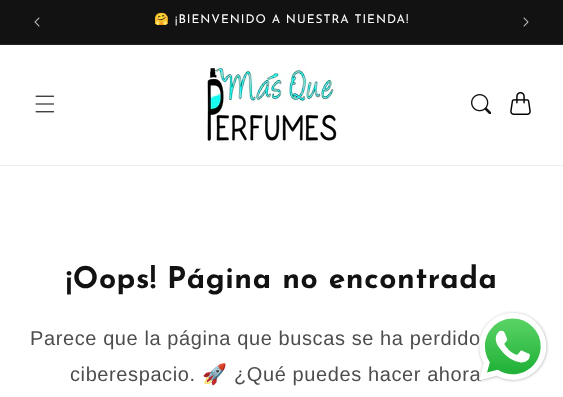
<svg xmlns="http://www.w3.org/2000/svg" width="563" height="397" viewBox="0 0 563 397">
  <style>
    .t1 { font: 12px Noto Color Emoji; letter-spacing: 1px; fill: #fff; }
    .t2 { font: 100 12px Josefin Sans; letter-spacing: 1px; fill: #fff; }
    .t3 { font: bold 30px Josefin Sans; letter-spacing: 0.6px; fill: #121212; }
    .t4 { font: 20px Liberation Sans; letter-spacing: 0.6px; fill: #4d4d4d; }
    .t5 { font: 20px Noto Color Emoji; letter-spacing: 0.6px; fill: #4d4d4d; }
  </style>
  <rect width="100%" height="100%" fill="#fff"/>
  <rect x="0" y="0" width="563" height="44" fill="#121212"/>
  <rect x="0" y="44" width="563" height="1" fill="#252525"/>
  <image x="34" y="17" width="6" height="10" href="images/1.png"/>
  <text x="154" y="23" class="t1">🤗</text>
  <text x="175" y="23" class="t2">¡BIENVENIDO A NUESTRA TIENDA!</text>
  <image x="523" y="17" width="6" height="10" href="images/2.png"/>
  <rect x="0" y="165" width="563" height="1" fill="#ececec"/>
  <image x="35" y="95" width="20" height="18" href="images/3.png"/>
  <image x="207" y="64" width="131" height="80" href="images/4.png"/>
  <image x="471" y="94" width="20" height="20" href="images/5.png"/>
  <image x="510" y="92" width="21" height="23" href="images/6.png"/>
  <text x="66" y="288" class="t3">¡Oops! Página no encontrada</text>
  <text x="30" y="345" class="t4">Parece que la página que buscas se ha perdido</text>
  <text x="70" y="381" class="t4">ciberespacio.</text>
  <text x="202" y="381" class="t5">🚀</text>
  <text x="234" y="381" class="t4">¿Qué puedes hacer ahora</text>
  <image x="477" y="311" width="72" height="72" href="images/7.png"/>
</svg>
